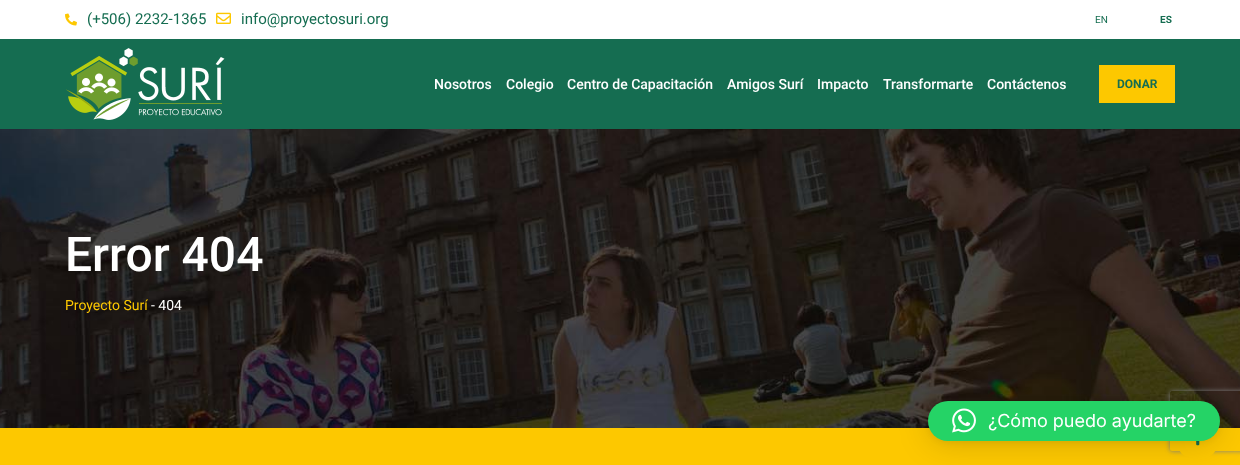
<svg xmlns="http://www.w3.org/2000/svg" width="1240" height="465" viewBox="0 0 1240 465">
  <style>
    .t1 { font: 15px Roboto; fill: #156d51; }
    .t2 { font: 10px Roboto; fill: #156d51; }
    .t3 { font: bold 10px Roboto; fill: #156d51; }
    .t4 { font: 500 14px Roboto; fill: #fff; }
    .t5 { font: bold 12px Roboto; fill: #156d51; }
    .t6 { font: 500 48px Roboto; fill: #fff; }
    .t7 { font: 14px Roboto; fill: #fdc800; }
    .t8 { font: 14px Roboto; fill: #fff; }
    .t9 { font: 18px Inter; fill: #fff; }
  </style>
  <defs>
    <clipPath id="clip1"><path d="M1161 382H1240V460H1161ZM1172 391H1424C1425 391 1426 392 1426 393V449C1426 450 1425 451 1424 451H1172C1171 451 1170 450 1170 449V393C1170 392 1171 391 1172 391Z" clip-rule="evenodd"/></clipPath>
  </defs>
  <rect width="100%" height="100%" fill="#156d51"/>
  <rect x="0" y="0" width="1240" height="39" fill="#fff"/>
  <image x="65" y="13" width="12" height="13" href="images/1.png"/>
  <text x="87" y="24" class="t1">(+506) 2232-1365</text>
  <image x="216" y="12" width="15" height="12" href="images/2.png"/>
  <text x="241" y="24" class="t1">info@proyectosuri.org</text>
  <text x="1095" y="23" class="t2">EN</text>
  <text x="1160" y="23" class="t3">ES</text>
  <image x="66" y="48" width="159" height="72" href="images/3.png"/>
  <text x="434" y="89" class="t4">Nosotros</text>
  <text x="506" y="89" class="t4">Colegio</text>
  <text x="567" y="89" class="t4">Centro de Capacitación</text>
  <text x="727" y="89" class="t4">Amigos Surí</text>
  <text x="817" y="89" class="t4">Impacto</text>
  <text x="883" y="89" class="t4">Transformarte</text>
  <text x="987" y="89" class="t4">Contáctenos</text>
  <rect x="1099" y="65" width="76" height="38" fill="#fdc800"/>
  <text x="1117" y="88" class="t5">DONAR</text>
  <image x="0" y="129" width="1240" height="299" href="images/4.png"/>
  <text x="65" y="271" class="t6">Error 404</text>
  <text x="65" y="310" class="t7">Proyecto Surí</text>
  <text x="151" y="310" class="t8">- 404</text>
  <rect x="0" y="428" width="1240" height="37" fill="#fdc800"/>
  <g clip-path="url(#clip1)">
    <rect x="1170" y="391" width="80" height="60" rx="2" fill="#808080" filter="blur(2.5px)"/>
  </g>
  <circle cx="1197.5" cy="437.5" r="22.5" fill="#fdc800"/>
  <image x="1196" y="441" width="4" height="5" href="images/6.png"/>
  <rect x="928" y="403" width="292" height="40" rx="20" fill="#00000029" filter="blur(16px)"/>
  <rect x="928" y="402" width="292" height="40" rx="20" fill="#0000000f" filter="blur(3px)"/>
  <rect x="928" y="401" width="292" height="40" rx="20" fill="#25d366"/>
  <image x="952" y="408" width="24" height="25" href="images/5.png"/>
  <text x="988" y="427" class="t9">¿Cómo puedo ayudarte?</text>
</svg>
